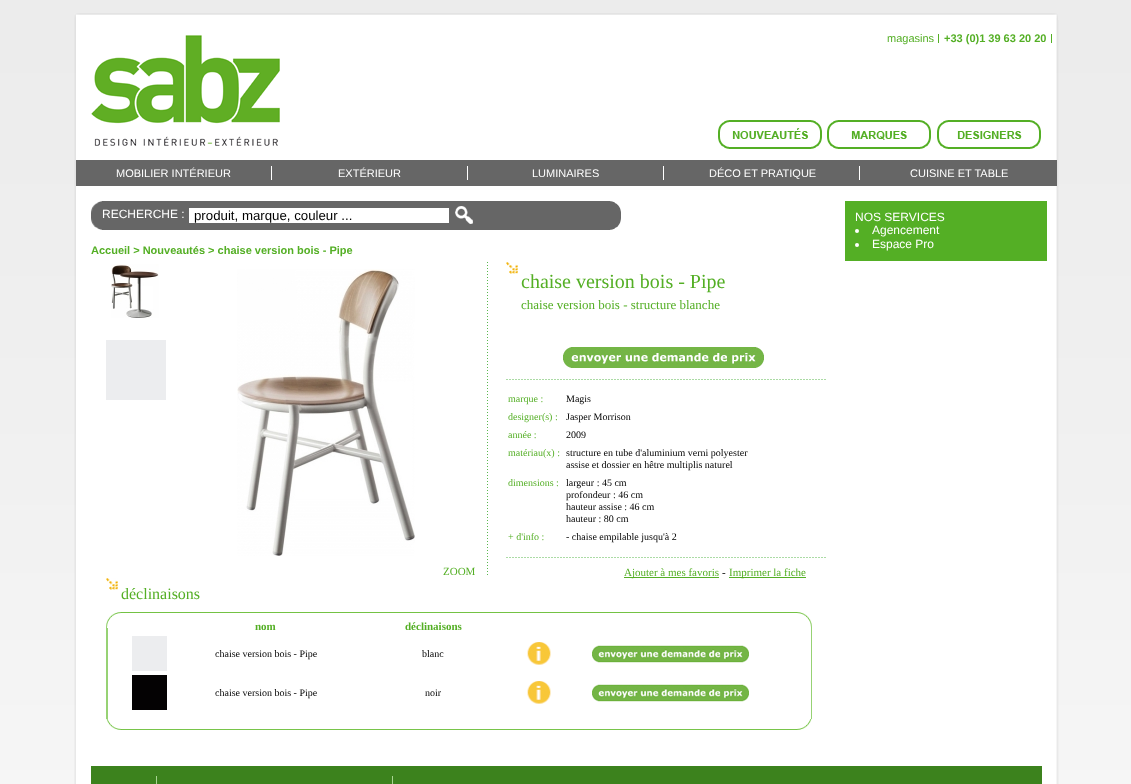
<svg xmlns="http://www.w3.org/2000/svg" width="1131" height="784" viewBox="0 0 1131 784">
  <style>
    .t1 { font: 11px Liberation Sans; fill: #54af25; }
    .t2 { font: bold 11px Liberation Sans; fill: #54af25; }
    .t3 { font: 11px Liberation Sans; fill: #fff; }
    .t4 { font: 12px Liberation Sans; fill: #fff; }
    .t5 { font: 13.25px Liberation Sans; fill: #000; }
    .t6 { font: 11px Liberation Serif; fill: #54af25; }
    .t7 { font: 20px Liberation Serif; fill: #54af25; }
    .t8 { font: 13px Liberation Serif; fill: #54af25; }
    .t9 { font: 10px Liberation Serif; fill: #54af25; }
    .t10 { font: 10px Liberation Serif; fill: #000; }
    .t11 { font: 11px Liberation Serif; fill: #000; }
    .t12 { font: 16px Liberation Serif; fill: #54af25; }
    .t13 { font: bold 11px Liberation Serif; fill: #54af25; }
  </style>
  <rect width="100%" height="100%" fill="#fff"/>
  <image x="0" y="0" width="1131" height="784" href="images/1.png"/>
  <image x="74" y="13" width="984" height="7" href="images/2.png"/>
  <image x="74" y="20" width="985" height="764" href="images/3.png"/>
  <image x="91" y="35" width="189" height="111" href="images/4.png"/>
  <rect x="938" y="34" width="1" height="9" fill="#54af25"/>
  <text x="887" y="42" class="t1">magasins</text>
  <rect x="1051" y="34" width="1" height="9" fill="#54af25"/>
  <text x="944" y="42" class="t2">+33 (0)1 39 63 20 20</text>
  <image x="718" y="120" width="104" height="29" href="images/5.png"/>
  <image x="827" y="120" width="104" height="29" href="images/6.png"/>
  <image x="937" y="120" width="104" height="29" href="images/7.png"/>
  <rect x="76" y="160" width="981" height="26" fill="#666"/>
  <rect x="271" y="166" width="1" height="14" fill="#fff"/>
  <text x="116" y="177" class="t3">MOBILIER INTÉRIEUR</text>
  <rect x="467" y="166" width="1" height="14" fill="#fff"/>
  <text x="338" y="177" class="t3">EXTÉRIEUR</text>
  <rect x="663" y="166" width="1" height="14" fill="#fff"/>
  <text x="532" y="177" class="t3">LUMINAIRES</text>
  <rect x="859" y="166" width="1" height="14" fill="#fff"/>
  <text x="709" y="177" class="t3">DÉCO ET PRATIQUE</text>
  <text x="910" y="177" class="t3">CUISINE ET TABLE</text>
  <image x="91" y="201" width="11" height="29" href="images/8.png"/>
  <image x="610" y="201" width="11" height="29" href="images/9.png"/>
  <rect x="102" y="201" width="508" height="29" fill="#666"/>
  <text x="102" y="218" class="t4">RECHERCHE :</text>
  <rect x="189" y="208" width="260" height="15" fill="#fff"/>
  <text x="194" y="220" class="t5">produit, marque, couleur ...</text>
  <image x="455" y="206" width="18" height="18" href="images/10.png"/>
  <text x="91" y="254" class="t2">Accueil &gt; Nouveautés &gt; chaise version bois - Pipe</text>
  <image x="487" y="262" width="1" height="313" href="images/11.png"/>
  <image x="111" y="264" width="48" height="54" href="images/12.png"/>
  <rect x="106" y="340" width="60" height="60" fill="#ecedef"/>
  <image x="237" y="269" width="178" height="287" href="images/13.png"/>
  <text x="443" y="575" class="t6">ZOOM</text>
  <image x="506" y="262" width="12" height="12" href="images/14.png"/>
  <text x="521" y="288" class="t7">chaise version bois - Pipe</text>
  <text x="521" y="309" class="t8">chaise version bois - structure blanche</text>
  <image x="563" y="347" width="201" height="21" href="images/15.png"/>
  <image x="506" y="379" width="320" height="1" href="images/16.png"/>
  <text x="508" y="402" class="t9">marque :</text>
  <text x="566" y="402" class="t10">Magis</text>
  <text x="508" y="420" class="t9">designer(s) :</text>
  <text x="566" y="420" class="t10">Jasper Morrison</text>
  <text x="508" y="438" class="t9">année :</text>
  <text x="566" y="438" class="t10">2009</text>
  <text x="508" y="456" class="t9">matériau(x) :</text>
  <text x="566" y="456" class="t10">structure en tube d'aluminium verni polyester</text>
  <text x="566" y="468" class="t10">assise et dossier en hêtre multiplis naturel</text>
  <text x="508" y="486" class="t9">dimensions :</text>
  <text x="566" y="486" class="t10">largeur : 45 cm</text>
  <text x="566" y="498" class="t10">profondeur : 46 cm</text>
  <text x="566" y="510" class="t10">hauteur assise : 46 cm</text>
  <text x="566" y="522" class="t10">hauteur : 80 cm</text>
  <text x="508" y="540" class="t9">+ d'info :</text>
  <text x="566" y="540" class="t10">- chaise empilable jusqu'à 2</text>
  <image x="506" y="557" width="320" height="1" href="images/16.png"/>
  <rect x="624" y="577" width="95" height="1" fill="#54af25"/>
  <text x="624" y="576" class="t6">Ajouter à mes favoris</text>
  <text x="722" y="576" class="t11">-</text>
  <rect x="729" y="577" width="77" height="1" fill="#54af25"/>
  <text x="729" y="576" class="t6">Imprimer la fiche</text>
  <image x="106" y="578" width="12" height="12" href="images/14.png"/>
  <text x="121" y="599" class="t12">déclinaisons</text>
  <rect x="106" y="628" width="2" height="91" fill="#97d274"/>
  <rect x="811" y="628" width="1" height="91" fill="#97d274"/>
  <image x="106" y="612" width="706" height="16" href="images/17.png"/>
  <text x="255" y="630" class="t13">nom</text>
  <text x="405" y="630" class="t13">déclinaisons</text>
  <rect x="132" y="636" width="35" height="35" fill="#ecedef"/>
  <text x="215" y="657" class="t10">chaise version bois - Pipe</text>
  <text x="422" y="657" class="t10">blanc</text>
  <image x="527" y="642" width="24" height="23" href="images/18.png"/>
  <image x="592" y="645" width="157" height="18" href="images/19.png"/>
  <rect x="132" y="675" width="35" height="35" fill="#040203"/>
  <text x="215" y="696" class="t10">chaise version bois - Pipe</text>
  <text x="425" y="696" class="t10">noir</text>
  <image x="527" y="681" width="24" height="23" href="images/18.png"/>
  <image x="592" y="684" width="157" height="18" href="images/19.png"/>
  <image x="106" y="719" width="706" height="11" href="images/20.png"/>
  <rect x="845" y="201" width="202" height="60" fill="#54af25"/>
  <text x="855" y="221" class="t4">NOS SERVICES</text>
  <circle cx="857" cy="231" r="2" fill="#fff"/>
  <text x="872" y="234" class="t4">Agencement</text>
  <circle cx="857" cy="245" r="2" fill="#fff"/>
  <text x="872" y="248" class="t4">Espace Pro</text>
  <rect x="91" y="766" width="951" height="18" fill="#3c821d"/>
  <rect x="156" y="776" width="1" height="8" fill="#a8d592"/>
  <rect x="392" y="776" width="1" height="8" fill="#a8d592"/>
</svg>
